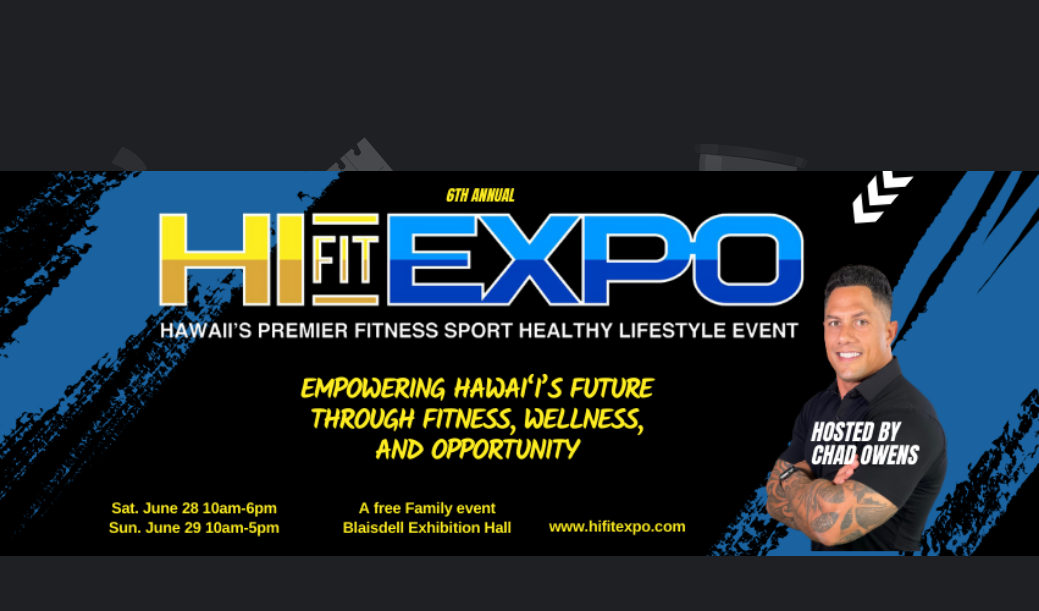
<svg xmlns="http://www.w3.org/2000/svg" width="1039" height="611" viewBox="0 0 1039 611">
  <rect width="100%" height="100%" fill="#1f2024"/>
  <image x="111" y="137" width="697" height="34" href="images/1.png"/>
  <image x="0" y="171" width="1039" height="385" href="images/2.png"/>
</svg>
